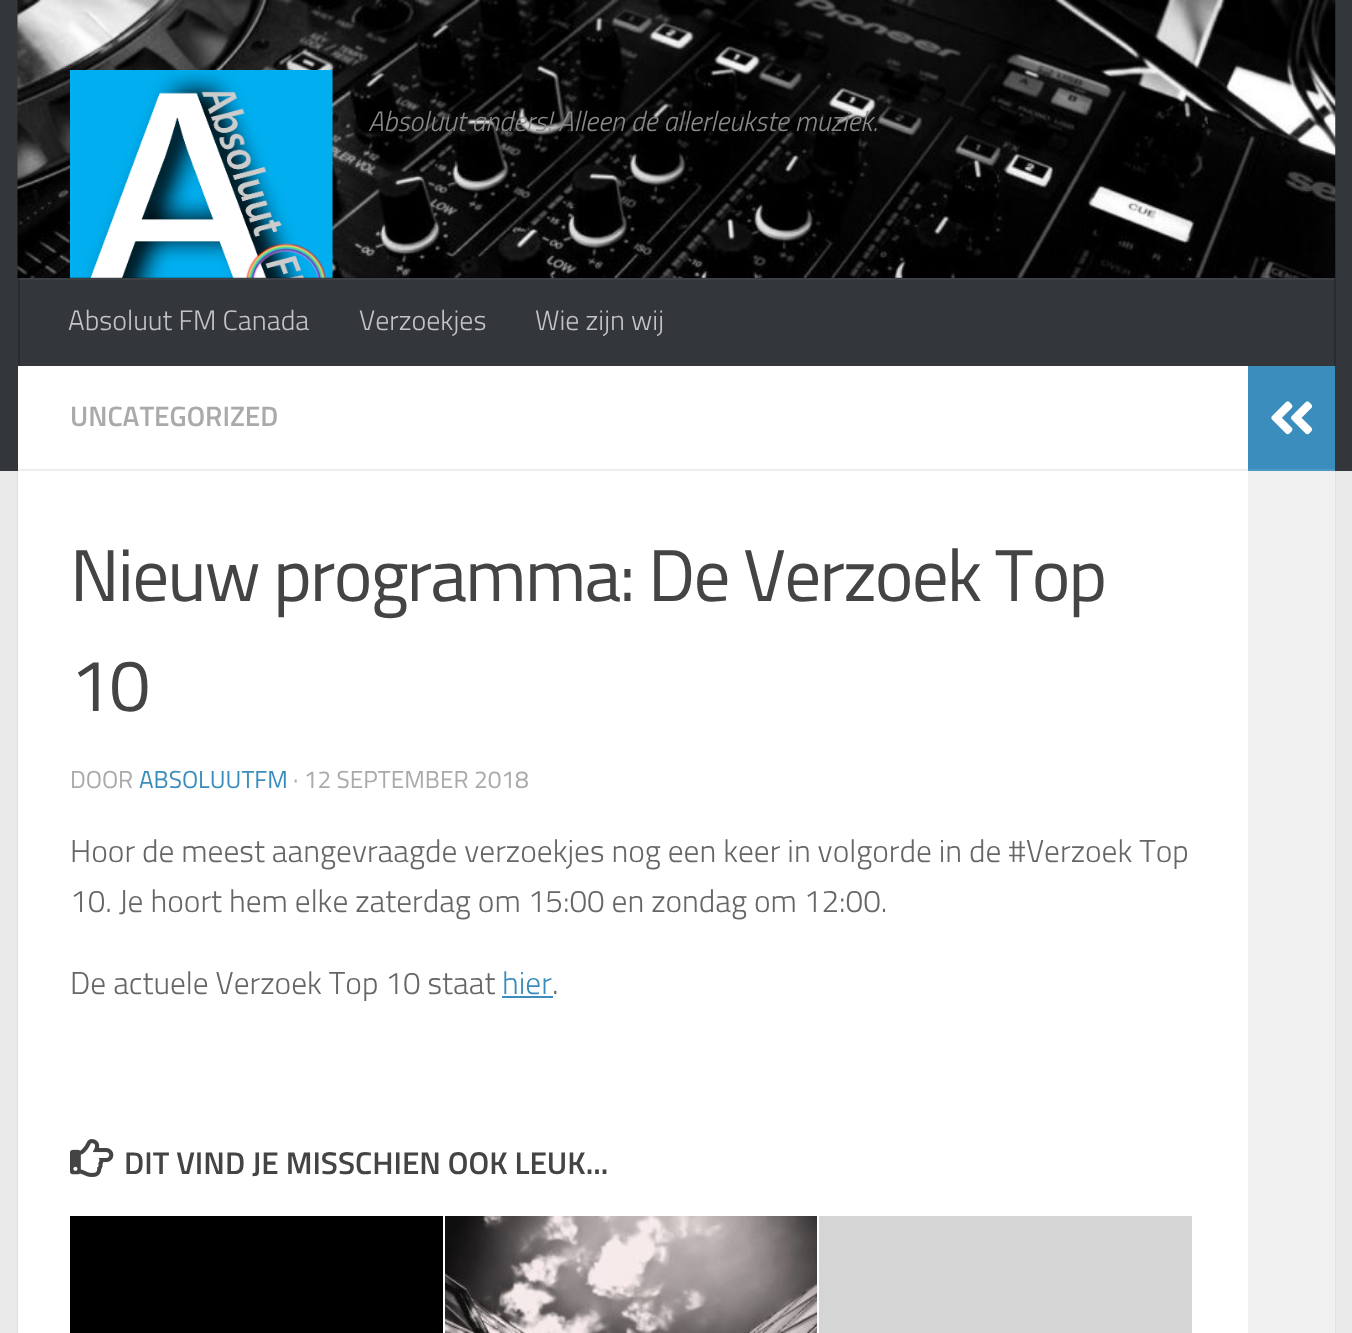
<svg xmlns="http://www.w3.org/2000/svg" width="1352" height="1333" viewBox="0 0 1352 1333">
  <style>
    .t1 { font: italic 300 28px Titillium; fill: #898989; }
    .t2 { font: 300 28px Titillium; fill: #c2c3c4; }
    .t3 { font: 600 28px Titillium; fill: #aaa; }
    .t4 { font: 73.4px Titillium; letter-spacing: -1.75px; fill: #444; }
    .t5 { font: 24.5px Titillium; fill: #aaa; }
    .t6 { font: 24.5px Titillium; fill: #3b8dbd; }
    .t7 { font: 300 31.5px Titillium; fill: #666; }
    .t8 { font: 300 31.5px Titillium; fill: #3b8dbd; }
    .t9 { font: 600 31.5px Titillium; fill: #444; }
  </style>
  <rect width="100%" height="100%" fill="#eaeaea"/>
  <rect x="18" y="368" width="1317" height="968" fill="#0000001a" filter="blur(1px)"/>
  <rect x="0" y="0" width="1352" height="471" fill="#33363b"/>
  <image x="17" y="0" width="1319" height="279" href="images/1.png"/>
  <image x="70" y="70" width="263" height="208" href="images/2.png"/>
  <text x="368" y="131" class="t1">Absoluut anders! Alleen de allerleukste muziek.</text>
  <rect x="30" y="277" width="1282" height="1" fill="#00000033"/>
  <rect x="20" y="278" width="1315" height="1" fill="#33363b"/>
  <rect x="1334" y="278" width="2" height="88" fill="#00000033"/>
  <rect x="18" y="278" width="2" height="88" fill="#292b2f"/>
  <rect x="18" y="278" width="1317" height="2" fill="#ffffff0d"/>
  <text x="68" y="330" class="t2">Absoluut FM Canada</text>
  <text x="359" y="330" class="t2">Verzoekjes</text>
  <text x="535" y="330" class="t2">Wie zijn wij</text>
  <rect x="18" y="366" width="1230" height="967" fill="#fff"/>
  <rect x="18" y="469" width="1230" height="2" fill="#eee"/>
  <text x="70" y="426" class="t3">UNCATEGORIZED</text>
  <text x="70" y="601" class="t4">Nieuw programma: De Verzoek Top</text>
  <text x="70" y="711" class="t4">10</text>
  <text x="70" y="788" class="t5">DOOR</text>
  <text x="139" y="788" class="t6">ABSOLUUTFM</text>
  <text x="293" y="788" class="t5">· 12 SEPTEMBER 2018</text>
  <text x="70" y="862" class="t7">Hoor de meest aangevraagde verzoekjes nog een keer in volgorde in de #Verzoek Top</text>
  <text x="70" y="912" class="t7">10. Je hoort hem elke zaterdag om 15:00 en zondag om 12:00.</text>
  <text x="70" y="994" class="t7">De actuele Verzoek Top 10 staat</text>
  <text x="502" y="994" class="t8">hier</text>
  <rect x="502" y="996" width="51" height="2" fill="#3b8dbd"/>
  <text x="552" y="994" class="t7">.</text>
  <image x="70" y="1139" width="44" height="38" href="images/3.png"/>
  <text x="124" y="1174" class="t9">DIT VIND JE MISSCHIEN OOK LEUK...</text>
  <rect x="70" y="1216" width="373" height="117" fill="#000"/>
  <image x="445" y="1216" width="372" height="117" href="images/4.png"/>
  <rect x="819" y="1216" width="373" height="117" fill="#d5d5d5"/>
  <rect x="1248" y="366" width="87" height="103" fill="#3b8dbd"/>
  <rect x="1248" y="469" width="87" height="2" fill="#4f98c4"/>
  <image x="1271" y="401" width="42" height="34" href="images/5.png"/>
  <rect x="1248" y="471" width="87" height="862" fill="#f0f0f0"/>
</svg>
